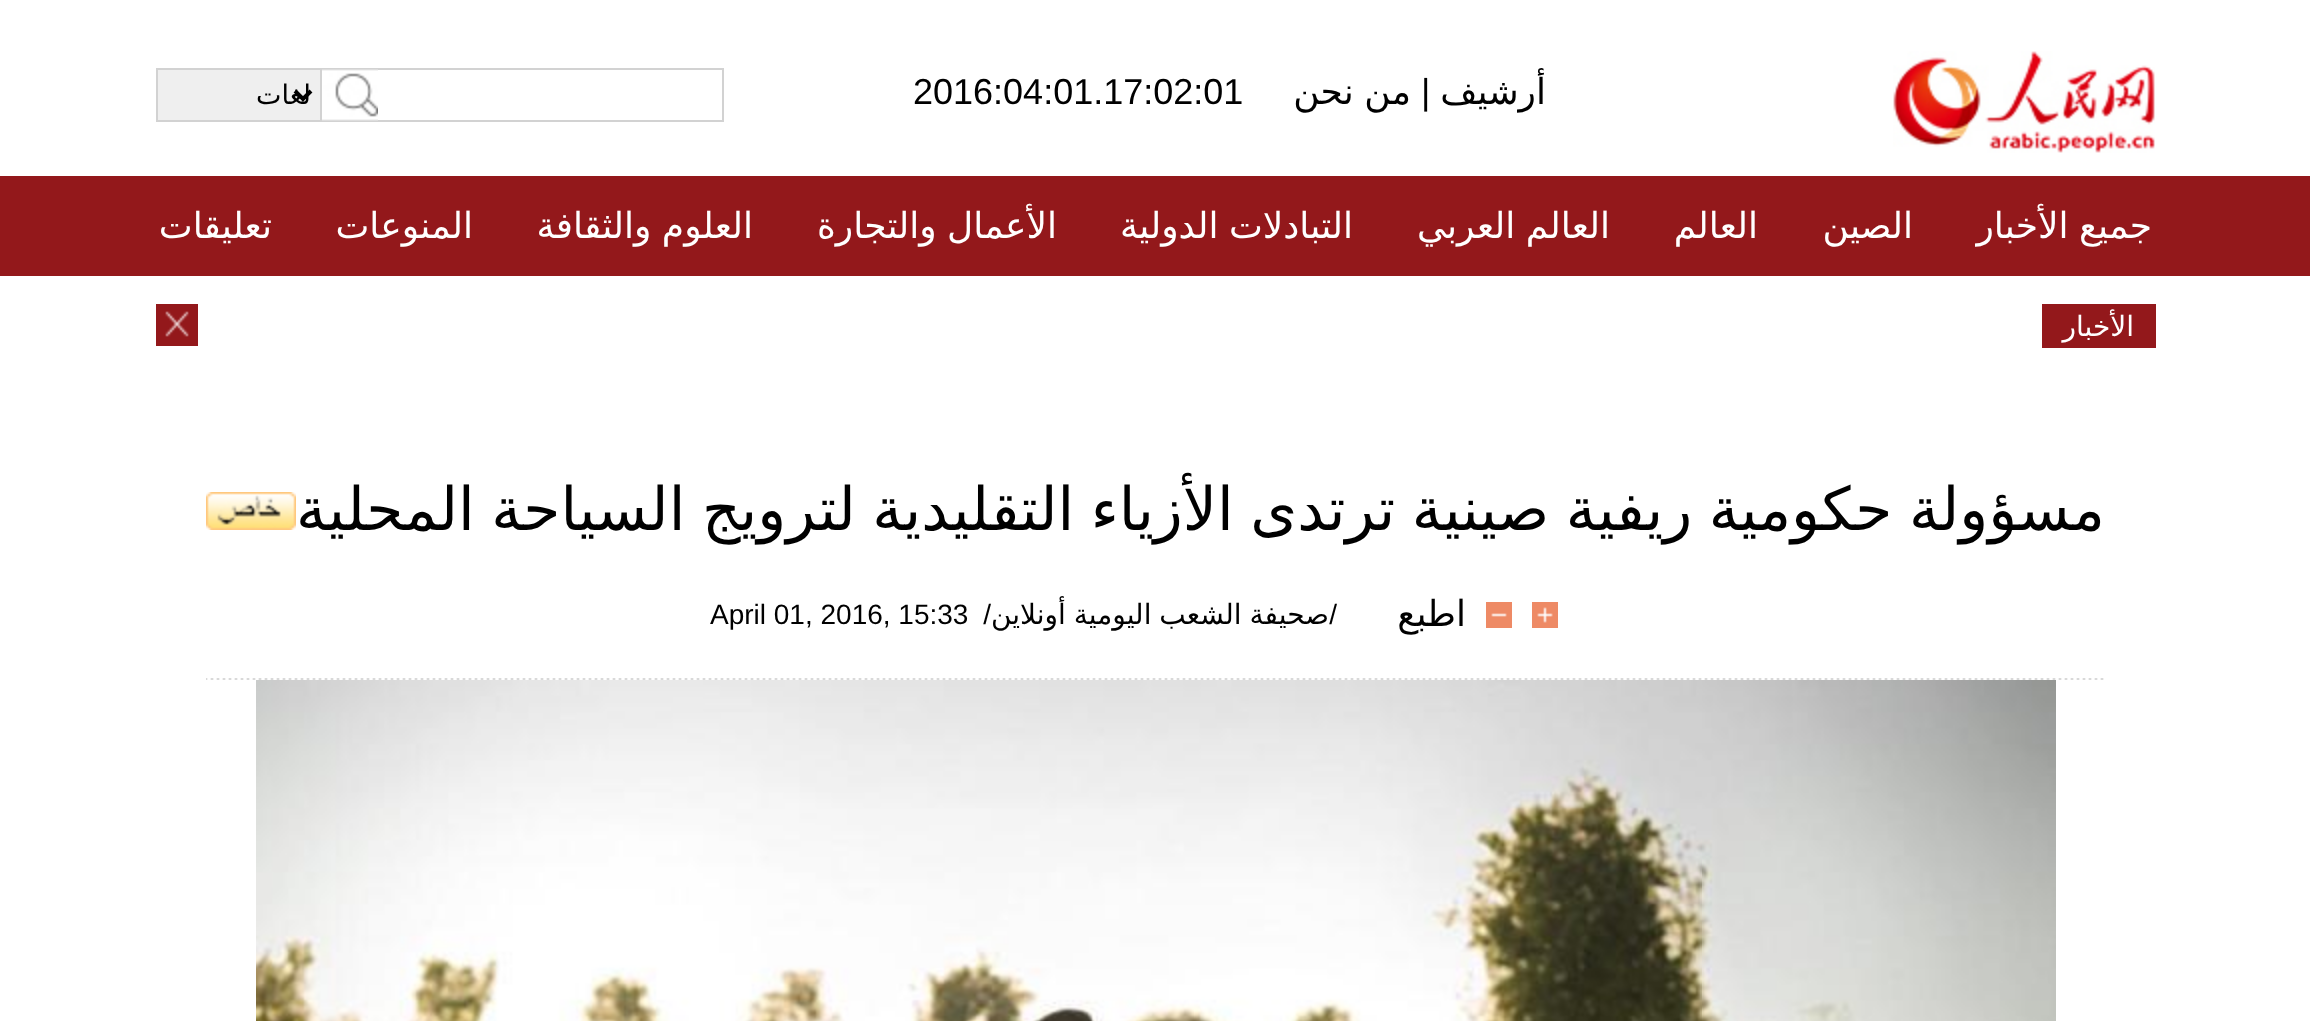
<svg xmlns="http://www.w3.org/2000/svg" width="2310" height="1021" viewBox="0 0 2310 1021">
  <style>
    .t1 { font: 36px DejaVu Sans; direction: rtl; fill: #000; }
    .t2 { font: 36px Liberation Sans; fill: #000; }
    .t3 { font: 27px DejaVu Sans; direction: rtl; fill: #000; }
    .t4 { font: 36px DejaVu Sans; direction: rtl; fill: #fff; }
    .t5 { font: 28px DejaVu Sans; direction: rtl; fill: #fff; }
    .t6 { font: 60px DejaVu Sans; direction: rtl; fill: #000; }
    .t7 { font: 28px DejaVu Sans; direction: rtl; fill: #000; }
    .t8 { font: 28px Liberation Sans; direction: rtl; fill: #000; }
    .t9 { font: 28px Liberation Sans; fill: #000; }
  </style>
  <rect width="100%" height="100%" fill="#fff"/>
  <image x="1893" y="51" width="262" height="102" href="images/1.png"/>
  <text x="1546" y="104" class="t1">أرشيف</text>
  <text x="1421" y="104" class="t2">|</text>
  <text x="1411" y="104" word-spacing="-1" class="t1">من نحن</text>
  <text x="913" y="104" class="t2">2016:04:01.17:02:01</text>
  <rect x="378" y="68" width="346" height="2" fill="#d2d2d2"/>
  <rect x="722" y="68" width="2" height="54" fill="#d2d2d2"/>
  <rect x="378" y="120" width="346" height="2" fill="#d2d2d2"/>
  <image x="322" y="68" width="56" height="54" href="images/2.png"/>
  <rect x="157" y="69" width="164" height="52" fill="#efefef" stroke="#d2d2d2" stroke-width="2"/>
  <path d="M295 91L303 99L311 91" fill="none" stroke="#000" stroke-width="4"/>
  <text x="311" y="104" class="t3">لغات</text>
  <rect x="0" y="176" width="2310" height="100" fill="#93181b"/>
  <text x="2152" y="238" word-spacing="-1" class="t4">جميع الأخبار</text>
  <text x="1913" y="238" class="t4">الصين</text>
  <text x="1758" y="238" class="t4">العالم</text>
  <text x="1610" y="238" word-spacing="-1" class="t4">العالم العربي</text>
  <text x="1353" y="238" word-spacing="-1" class="t4">التبادلات الدولية</text>
  <text x="1057" y="238" word-spacing="-1" class="t4">الأعمال والتجارة</text>
  <text x="753" y="238" word-spacing="-1" class="t4">العلوم والثقافة</text>
  <text x="473" y="238" class="t4">المنوعات</text>
  <text x="272" y="238" class="t4">تعليقات</text>
  <rect x="2042" y="304" width="114" height="44" fill="#93181b"/>
  <text x="2134" y="336" class="t5">الأخبار</text>
  <image x="156" y="304" width="42" height="42" href="images/3.png"/>
  <text x="2105" y="530" word-spacing="-2.5" class="t6">مسؤولة حكومية ريفية صينية ترتدى الأزياء التقليدية لترويج السياحة المحلية</text>
  <image x="206" y="492" width="90" height="38" href="images/4.png"/>
  <image x="206" y="678" width="1898" height="2" href="images/5.png"/>
  <image x="1532" y="602" width="26" height="26" href="images/6.png"/>
  <image x="1486" y="602" width="26" height="26" href="images/7.png"/>
  <text x="1466" y="626" class="t1">اطبع</text>
  <text x="1329" y="624" word-spacing="-1" class="t7">صحيفة الشعب اليومية أونلاين</text>
  <text x="1337" y="624" class="t8">/</text>
  <text x="991" y="624" class="t8">/</text>
  <text x="710" y="624" class="t9">April 01, 2016, 15:33</text>
  <image x="256" y="680" width="1800" height="341" href="images/8.png"/>
</svg>
